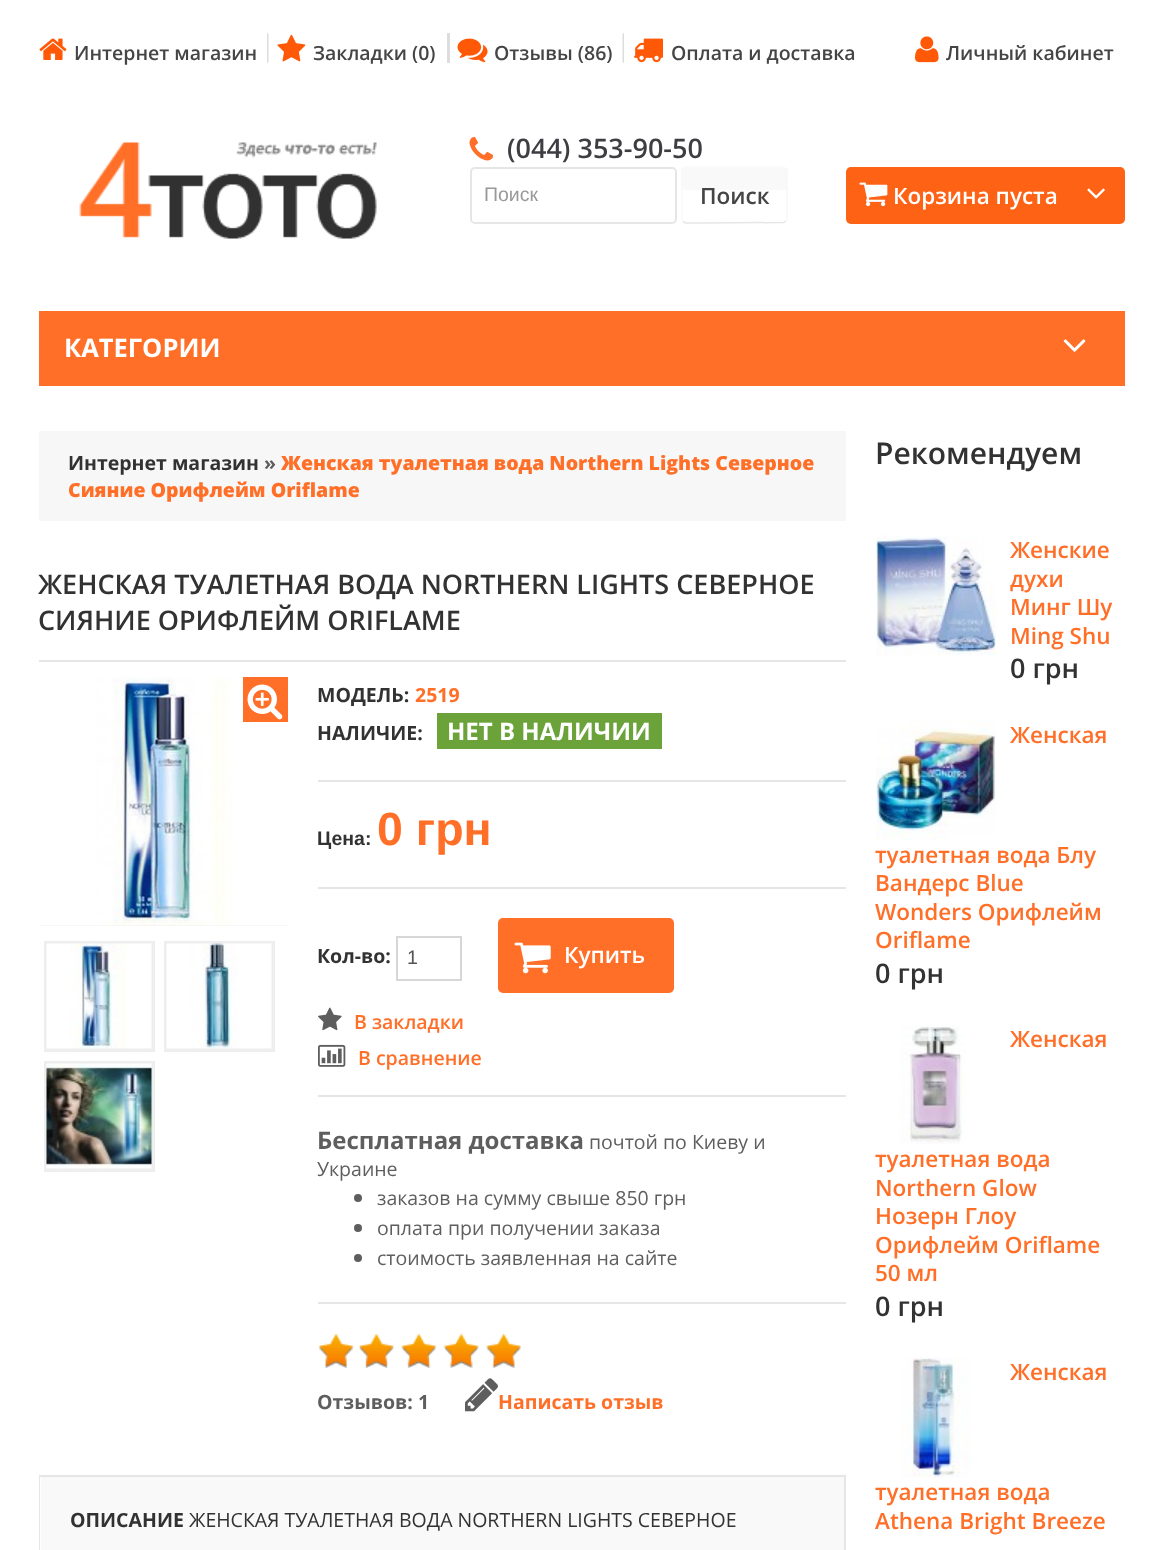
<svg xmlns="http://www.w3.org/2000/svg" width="1162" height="1550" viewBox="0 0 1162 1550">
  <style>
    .t1 { font: 600 19.5px Open Sans; fill: #444544; }
    .t2 { font: 600 27px Open Sans; fill: #3e3d41; }
    .t3 { font: 19.5px Liberation Sans; fill: #999; }
    .t4 { font: 600 22.5px Open Sans; fill: #444544; }
    .t5 { font: 600 22.5px Open Sans; fill: #fff; }
    .t6 { font: bold 25.5px Open Sans; fill: #fff; }
    .t7 { font: bold 19.5px Open Sans; fill: #323232; }
    .t8 { font: bold 19.5px Open Sans; fill: #5e5e5e; }
    .t9 { font: 800 19.5px Open Sans; fill: #ff6f28; }
    .t10 { font: 600 27px Open Sans; fill: #323232; }
    .t11 { font: bold 19.5px Open Sans; fill: #ff6f28; }
    .t12 { font: bold 24px Open Sans; fill: #fff; }
    .t13 { font: bold 19.5px Liberation Sans; fill: #323232; }
    .t14 { font: bold 46.5px Liberation Sans; fill: #ff6f28; }
    .t15 { font: 19.5px Liberation Sans; fill: #555; }
    .t16 { font: 600 19.5px Open Sans; fill: #ff6f28; }
    .t17 { font: bold 24px Open Sans; fill: #5e5e5e; }
    .t18 { font: 19.5px Open Sans; fill: #5e5e5e; }
    .t19 { font: 19.5px Open Sans; fill: #323232; }
    .t20 { font: 600 30px Open Sans; fill: #323232; }
    .t21 { font: 600 22.5px Open Sans; fill: #ff6f28; }
  </style>
  <rect width="100%" height="100%" fill="#fff"/>
  <image x="39" y="38" width="28" height="22" href="images/1.png"/>
  <text x="74" y="60" class="t1">Интернет магазин</text>
  <image x="267" y="33" width="2" height="30" href="images/2.png"/>
  <image x="277" y="34" width="29" height="28" href="images/3.png"/>
  <text x="313" y="60" class="t1">Закладки (0)</text>
  <rect x="447" y="33" width="3" height="30" fill="#ddd"/>
  <image x="457" y="38" width="31" height="25" href="images/4.png"/>
  <text x="494" y="60" class="t1">Отзывы (86)</text>
  <image x="622" y="33" width="2" height="30" href="images/5.png"/>
  <image x="634" y="38" width="29" height="25" href="images/6.png"/>
  <text x="671" y="60" class="t1">Оплата и доставка</text>
  <image x="915" y="36" width="24" height="27" href="images/7.png"/>
  <text x="946" y="60" class="t1">Личный кабинет</text>
  <image x="79" y="142" width="298" height="97" href="images/8.png"/>
  <image x="469" y="136" width="25" height="25" href="images/9.png"/>
  <text x="507" y="158" class="t2">(044) 353-90-50</text>
  <rect x="471" y="168" width="205" height="55" rx="4" fill="none" stroke="#e6e6e6" stroke-width="2"/>
  <text x="484" y="201" class="t3">Поиск</text>
  <rect x="681" y="168" width="106" height="22" fill="#f9f9f9"/>
  <path d="M785.5 168.5C786.5 169 787 170 787 171V219C787 220 786.5 221 785.5 221.5" fill="none" stroke="#f8f8f8" stroke-width="1.5"/>
  <path d="M785.5 221.5L783.5 222.5L702 223H685.5L683 221.5" fill="none" stroke="#e6e6e6" stroke-width="1.5"/>
  <path d="M683 221.5C682 221 682 220 682 219V171C682 170 682 169 683 168.5C683.5 167.5 684.5 167 685.5 167H783C784 167 785 167.5 785.5 168.5" fill="none" stroke="#f9f9f9" stroke-width="1.5"/>
  <text x="700" y="204" class="t4">Поиск</text>
  <rect x="846" y="167" width="279" height="57" rx="5" fill="#fe6215"/>
  <image x="859" y="182" width="29" height="25" href="images/10.png"/>
  <text x="893" y="204" class="t5">Корзина пуста</text>
  <image x="1087" y="188" width="18" height="11" href="images/11.png"/>
  <rect x="39" y="311" width="1086" height="75" fill="#ff6f28"/>
  <text x="64" y="357" class="t6">КАТЕГОРИИ</text>
  <image x="1063" y="339" width="23" height="13" href="images/12.png"/>
  <rect x="39" y="431" width="807" height="90" fill="#f7f7f7"/>
  <text x="68" y="470" class="t7">Интернет магазин</text>
  <text x="264" y="470" class="t8">»</text>
  <text x="281" y="470" class="t9">Женская туалетная вода Northern Lights Северное</text>
  <text x="68" y="497" class="t9">Сияние Орифлейм Oriflame</text>
  <rect x="39" y="660" width="807" height="2" fill="#e6e6e6"/>
  <text x="38" y="594" class="t10">ЖЕНСКАЯ ТУАЛЕТНАЯ ВОДА NORTHERN LIGHTS СЕВЕРНОЕ</text>
  <text x="38" y="630" class="t10">СИЯНИЕ ОРИФЛЕЙМ ORIFLAME</text>
  <rect x="39" y="925" width="249" height="1" fill="#efeeee"/>
  <image x="39" y="676" width="249" height="250" href="images/13.png"/>
  <rect x="243" y="677" width="45" height="45" fill="#ff6f28"/>
  <image x="247" y="684" width="36" height="36" href="images/14.png"/>
  <rect x="44" y="941" width="111" height="111" fill="#efeeee"/>
  <image x="46" y="943" width="106" height="106" href="images/15.png"/>
  <rect x="164" y="941" width="111" height="111" fill="#efeeee"/>
  <image x="166" y="943" width="106" height="106" href="images/16.png"/>
  <rect x="44" y="1061" width="111" height="111" fill="#efeeee"/>
  <image x="46" y="1063" width="106" height="106" href="images/17.png"/>
  <text x="317" y="702" class="t7">МОДЕЛЬ:</text>
  <text x="415" y="702" class="t11">2519</text>
  <text x="317" y="740" class="t7">НАЛИЧИЕ:</text>
  <rect x="437" y="713" width="225" height="36" fill="#6ba239"/>
  <text x="447" y="740" class="t12">НЕТ В НАЛИЧИИ</text>
  <rect x="318" y="780" width="528" height="2" fill="#e6e6e6"/>
  <rect x="318" y="887" width="528" height="2" fill="#e6e6e6"/>
  <text x="317" y="845" class="t13">Цена:</text>
  <text x="377" y="845" class="t14">0 грн</text>
  <rect x="318" y="1095" width="528" height="2" fill="#e6e6e6"/>
  <text x="317" y="963" class="t7">Кол-во:</text>
  <rect x="397" y="937" width="64" height="43" fill="none" stroke="#d7d7d7" stroke-width="2"/>
  <text x="407" y="964" class="t15">1</text>
  <rect x="498" y="918" width="176" height="75" rx="5" fill="#ff6f28"/>
  <image x="514" y="942" width="37" height="32" href="images/18.png"/>
  <text x="564" y="963" class="t5">Купить</text>
  <image x="318" y="1007" width="24" height="24" href="images/19.png"/>
  <text x="354" y="1029" class="t16">В закладки</text>
  <image x="318" y="1044" width="28" height="23" href="images/20.png"/>
  <text x="358" y="1065" class="t16">В сравнение</text>
  <rect x="318" y="1302" width="528" height="2" fill="#e6e6e6"/>
  <text x="317" y="1149" class="t17">Бесплатная доставка</text>
  <text x="589" y="1149" class="t18">почтой по Киеву и</text>
  <text x="317" y="1176" class="t18">Украине</text>
  <circle cx="358" cy="1198" r="4" fill="#5e5e5e"/>
  <text x="377" y="1205" class="t18">заказов на сумму свыше 850 грн</text>
  <circle cx="358" cy="1228" r="4" fill="#5e5e5e"/>
  <text x="377" y="1235" class="t18">оплата при получении заказа</text>
  <circle cx="358" cy="1258" r="4" fill="#5e5e5e"/>
  <text x="377" y="1265" class="t18">стоимость заявленная на сайте</text>
  <image x="318" y="1333" width="203" height="35" href="images/21.png"/>
  <text x="317" y="1409" class="t8">Отзывов: 1</text>
  <image x="465" y="1378" width="33" height="34" href="images/22.png"/>
  <text x="498" y="1409" class="t11">Написать отзыв</text>
  <rect x="41" y="1477" width="803" height="73" fill="#f9f9f9"/>
  <rect x="39" y="1475" width="807" height="2" fill="#e6e6e6"/>
  <path d="M846 1474V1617L844 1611V1476Z" fill="#e6e6e6"/>
  <path d="M39 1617V1474L40 1476V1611Z" fill="#e6e6e6"/>
  <text x="70" y="1527" class="t7">ОПИСАНИЕ</text>
  <text x="189" y="1527" class="t19">ЖЕНСКАЯ ТУАЛЕТНАЯ ВОДА NORTHERN LIGHTS СЕВЕРНОЕ</text>
  <text x="875" y="464" class="t20">Рекомендуем</text>
  <image x="876" y="535" width="120" height="121" href="images/23.png"/>
  <text x="1010" y="558" class="t21">Женские</text>
  <text x="1010" y="587" class="t21">духи</text>
  <text x="1010" y="615" class="t21">Минг Шу</text>
  <text x="1010" y="644" class="t21">Ming Shu</text>
  <text x="1010" y="678" class="t10">0 грн</text>
  <image x="876" y="720" width="120" height="120" href="images/24.png"/>
  <text x="1010" y="743" class="t21">Женская</text>
  <text x="875" y="863" class="t21">туалетная вода Блу</text>
  <text x="875" y="891" class="t21">Вандерс Blue</text>
  <text x="875" y="920" class="t21">Wonders Орифлейм</text>
  <text x="875" y="948" class="t21">Oriflame</text>
  <text x="875" y="983" class="t10">0 грн</text>
  <image x="900" y="1025" width="66" height="119" href="images/25.png"/>
  <text x="1010" y="1047" class="t21">Женская</text>
  <text x="875" y="1167" class="t21">туалетная вода</text>
  <text x="875" y="1196" class="t21">Northern Glow</text>
  <text x="875" y="1224" class="t21">Нозерн Глоу</text>
  <text x="875" y="1253" class="t21">Орифлейм Oriflame</text>
  <text x="875" y="1281" class="t21">50 мл</text>
  <text x="875" y="1316" class="t10">0 грн</text>
  <image x="900" y="1357" width="72" height="121" href="images/26.png"/>
  <text x="1010" y="1380" class="t21">Женская</text>
  <text x="875" y="1500" class="t21">туалетная вода</text>
  <text x="875" y="1529" class="t21">Athena Bright Breeze</text>
</svg>
